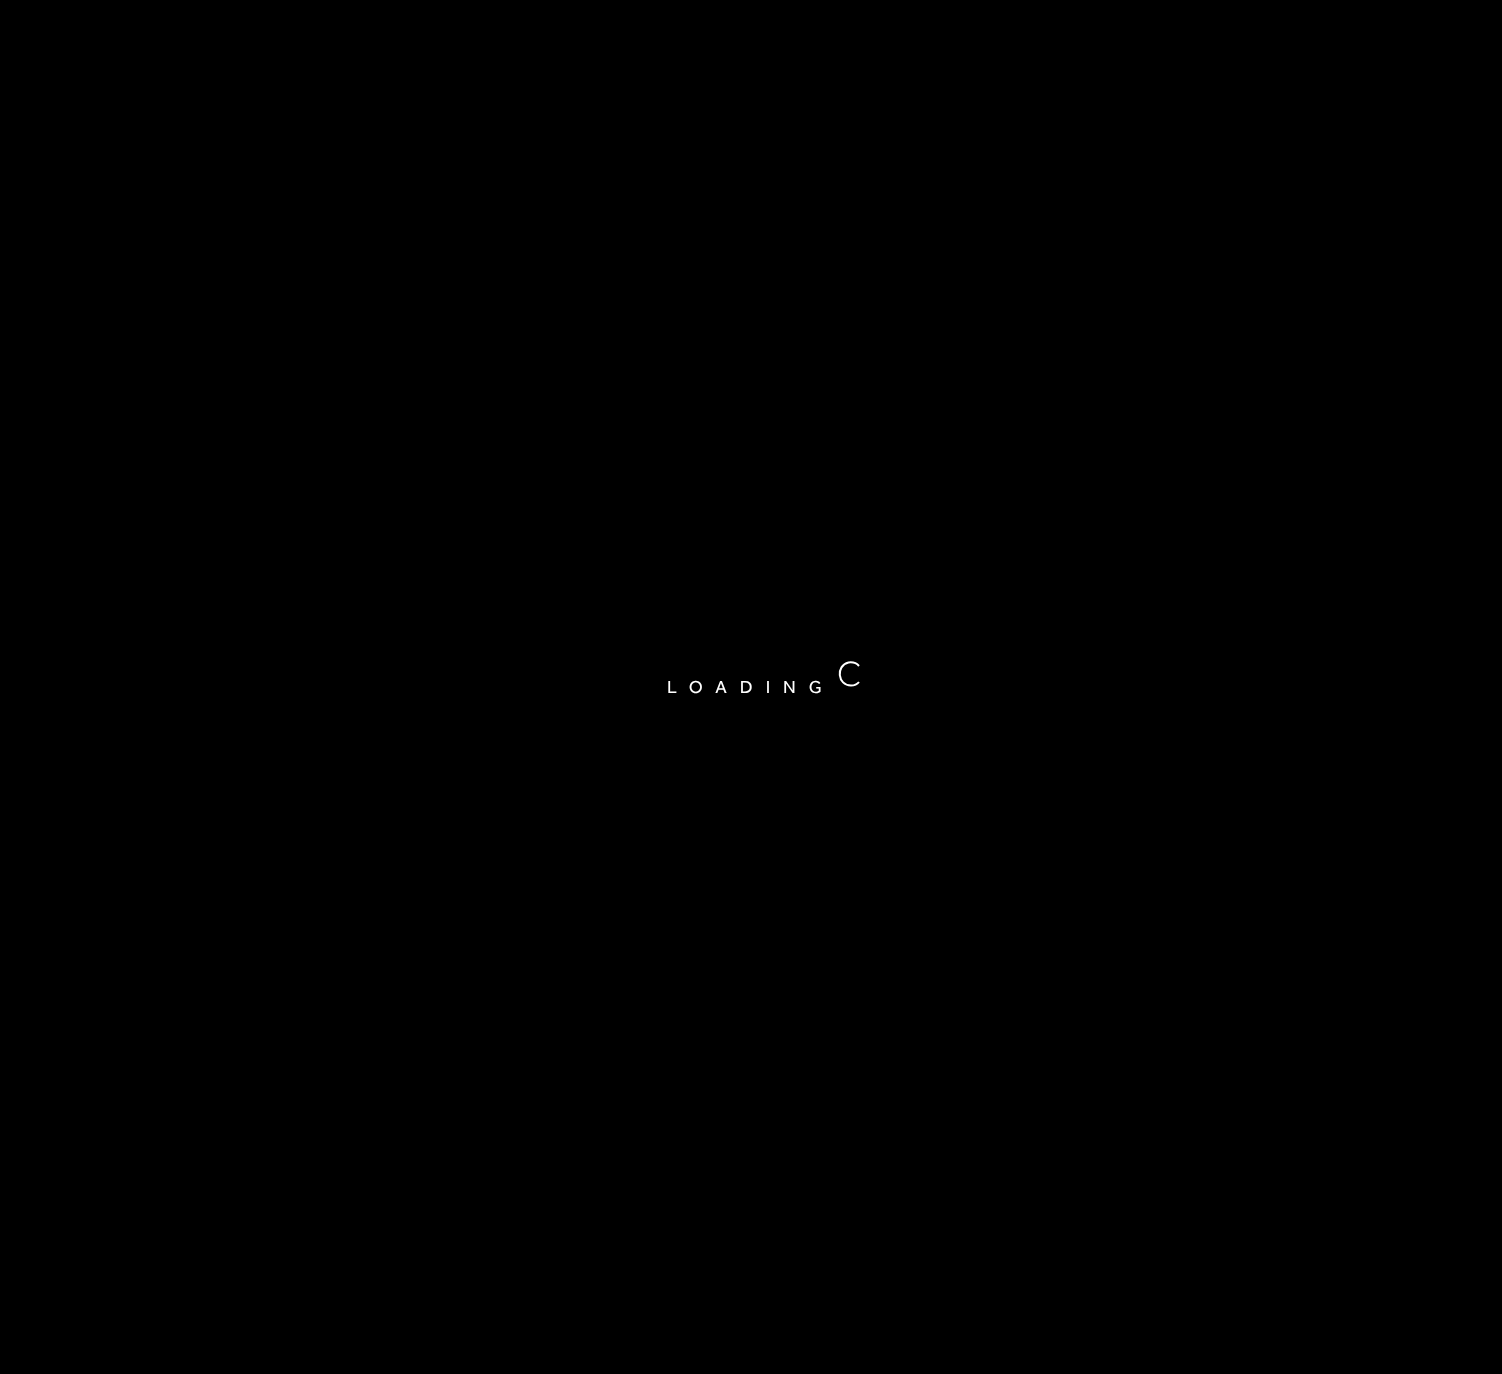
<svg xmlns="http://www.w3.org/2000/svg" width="1502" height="1374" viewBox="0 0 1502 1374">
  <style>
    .t1 { font: 18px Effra; letter-spacing: 13px; fill: #fff; }
  </style>
  <rect width="100%" height="100%" fill="#000"/>
  <text x="667" y="693" class="t1">LOADING</text>
  <path d="M859 682C857 684.5 854 685.5 851 685.5C837.5 685.5 835.5 665.5 848.5 662.5C852.5 662 856.5 663 859 666" fill="none" stroke="#fff" stroke-width="2"/>
</svg>
